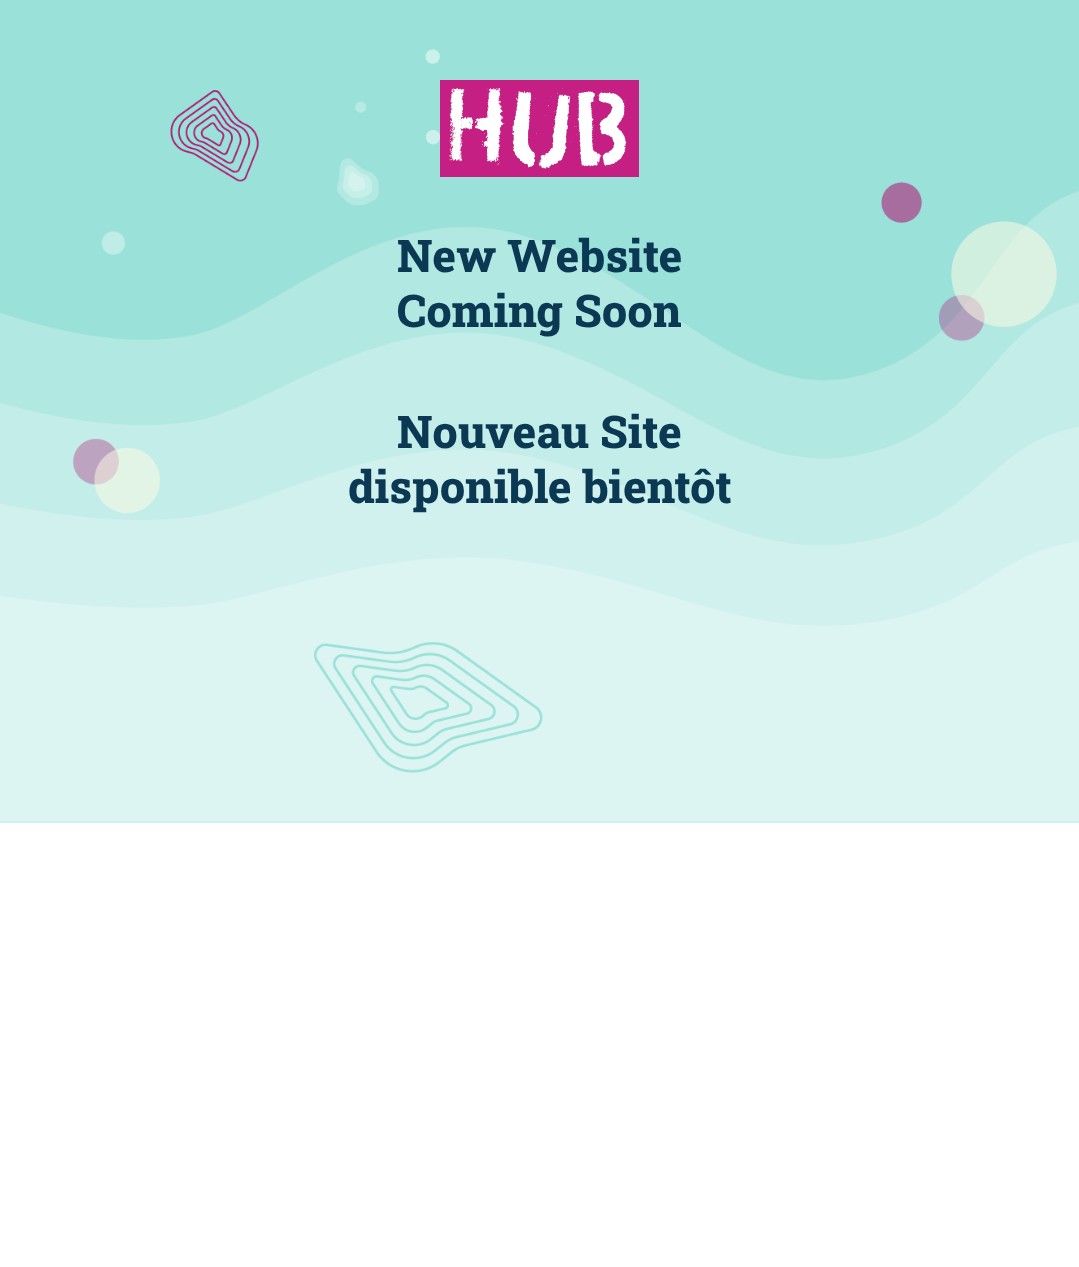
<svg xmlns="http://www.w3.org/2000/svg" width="1079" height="1267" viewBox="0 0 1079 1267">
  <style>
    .t1 { font: 800 45px Roboto Slab; fill: #0b3954; }
  </style>
  <rect width="100%" height="100%" fill="#fff"/>
  <image x="0" y="0" width="1079" height="824" href="images/1.png"/>
  <image x="440" y="80" width="199" height="97" href="images/2.png"/>
  <text x="397" y="272" class="t1">New Website</text>
  <text x="397" y="327" class="t1">Coming Soon</text>
  <text x="397" y="448" class="t1">Nouveau Site</text>
  <text x="348" y="503" class="t1">disponible bientôt</text>
</svg>
